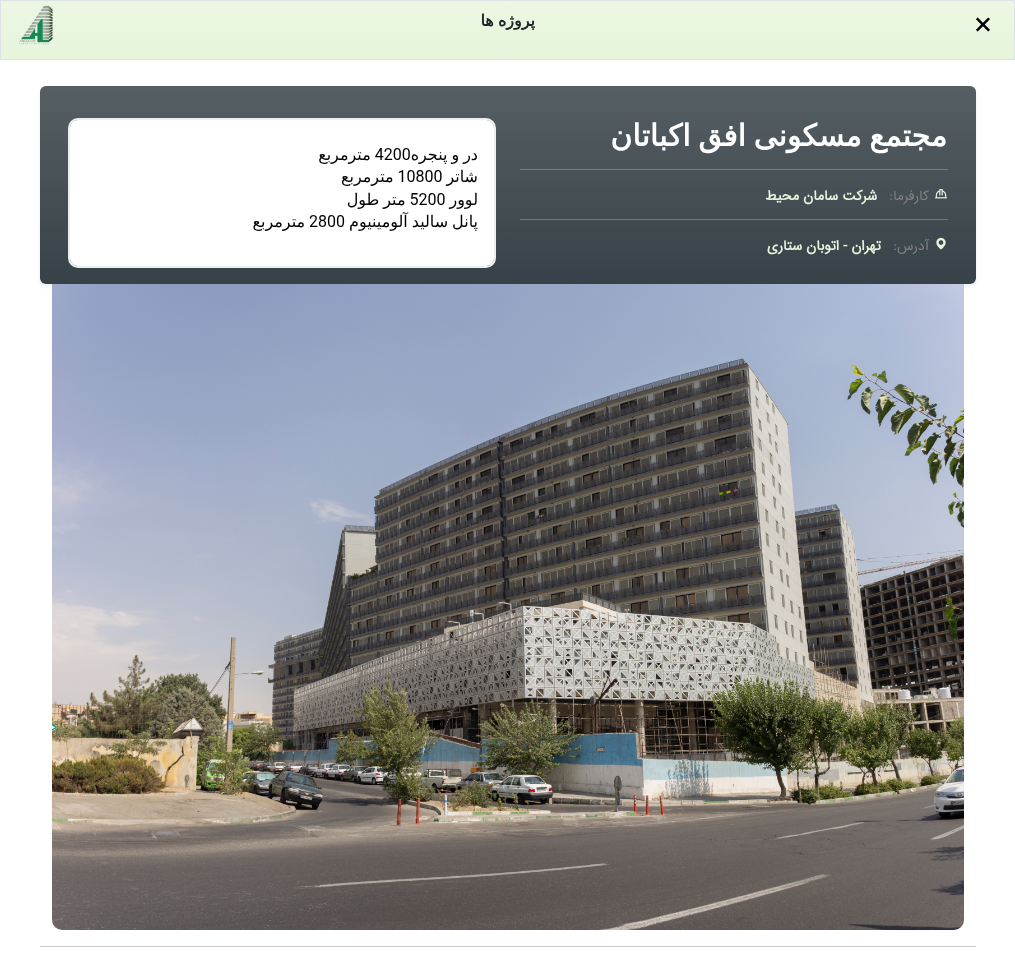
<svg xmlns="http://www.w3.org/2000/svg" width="1015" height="968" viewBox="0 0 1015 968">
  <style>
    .t1 { font: bold 16px DejaVu Sans; direction: rtl; fill: #212529; }
    .t2 { font: bold 30px DejaVu Sans; direction: rtl; fill: #fff; }
    .t3 { font: 14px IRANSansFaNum; direction: rtl; fill: #808080; }
    .t4 { font: bold 14px IRANSansFaNum; direction: rtl; fill: #e7f5dd; }
  </style>
  <defs>
    <linearGradient id="g1" gradientUnits="userSpaceOnUse" x1="508" y1="1" x2="508" y2="59"><stop offset="0" stop-color="#ebf7e2"/><stop offset="1" stop-color="#e7f5dd"/></linearGradient>
    <linearGradient id="g2" gradientUnits="userSpaceOnUse" x1="508" y1="86" x2="508" y2="284"><stop offset="0" stop-color="#fff" stop-opacity="0.15"/><stop offset="1" stop-color="#fff" stop-opacity="0"/></linearGradient>
  </defs>
  <rect width="100%" height="100%" fill="#fff"/>
  <rect x="1" y="1" width="1013" height="58" fill="url(#g1)"/>
  <rect x="0.5" y="0.5" width="1014" height="59" fill="none" stroke="#dee2e6"/>
  <image x="976" y="17" width="14" height="15" href="images/1.png"/>
  <text x="535" y="26" word-spacing="-1" class="t1">پروژه ها</text>
  <image x="19" y="5" width="34" height="40" href="images/2.png"/>
  <rect x="40" y="88" width="936" height="198" rx="6" fill="#00000012" filter="blur(2px)"/>
  <rect x="40" y="86" width="936" height="198" rx="6" fill="#374248"/>
  <rect x="40" y="86" width="936" height="198" rx="6" fill="url(#g2)"/>
  <text x="947" y="146" word-spacing="-2" class="t2">مجتمع مسکونی افق اکباتان</text>
  <rect x="520" y="169" width="428" height="1" fill="#767d82"/>
  <image x="935" y="189" width="12" height="10" href="images/3.png"/>
  <text x="929" y="200" class="t3">کارفرما:</text>
  <text x="877" y="200" class="t4">شرکت سامان محیط</text>
  <rect x="520" y="219" width="428" height="1" fill="#70787c"/>
  <image x="936" y="237" width="10" height="13" href="images/4.png"/>
  <text x="929" y="250" class="t3">آدرس:</text>
  <text x="881" y="250" class="t4">تهران - اتوبان ستاری</text>
  <rect x="69" y="119" width="426" height="148" rx="9" fill="none" stroke="#eee" stroke-width="2"/>
  <path d="M78 120H486C490.5 120 494 123.5 494 128H70C70 123.5 73.5 120 78 120Z" fill="#fff"/>
  <path d="M70 128H494V258C494 262.5 490.5 266 486 266H78C73.5 266 70 262.5 70 258Z" fill="#fff"/>
  <image x="253" y="148" width="225" height="83" href="images/5.png"/>
  <image x="52" y="284" width="912" height="646" href="images/6.png"/>
  <rect x="40" y="946" width="936" height="1" fill="#c8c9ca"/>
</svg>
